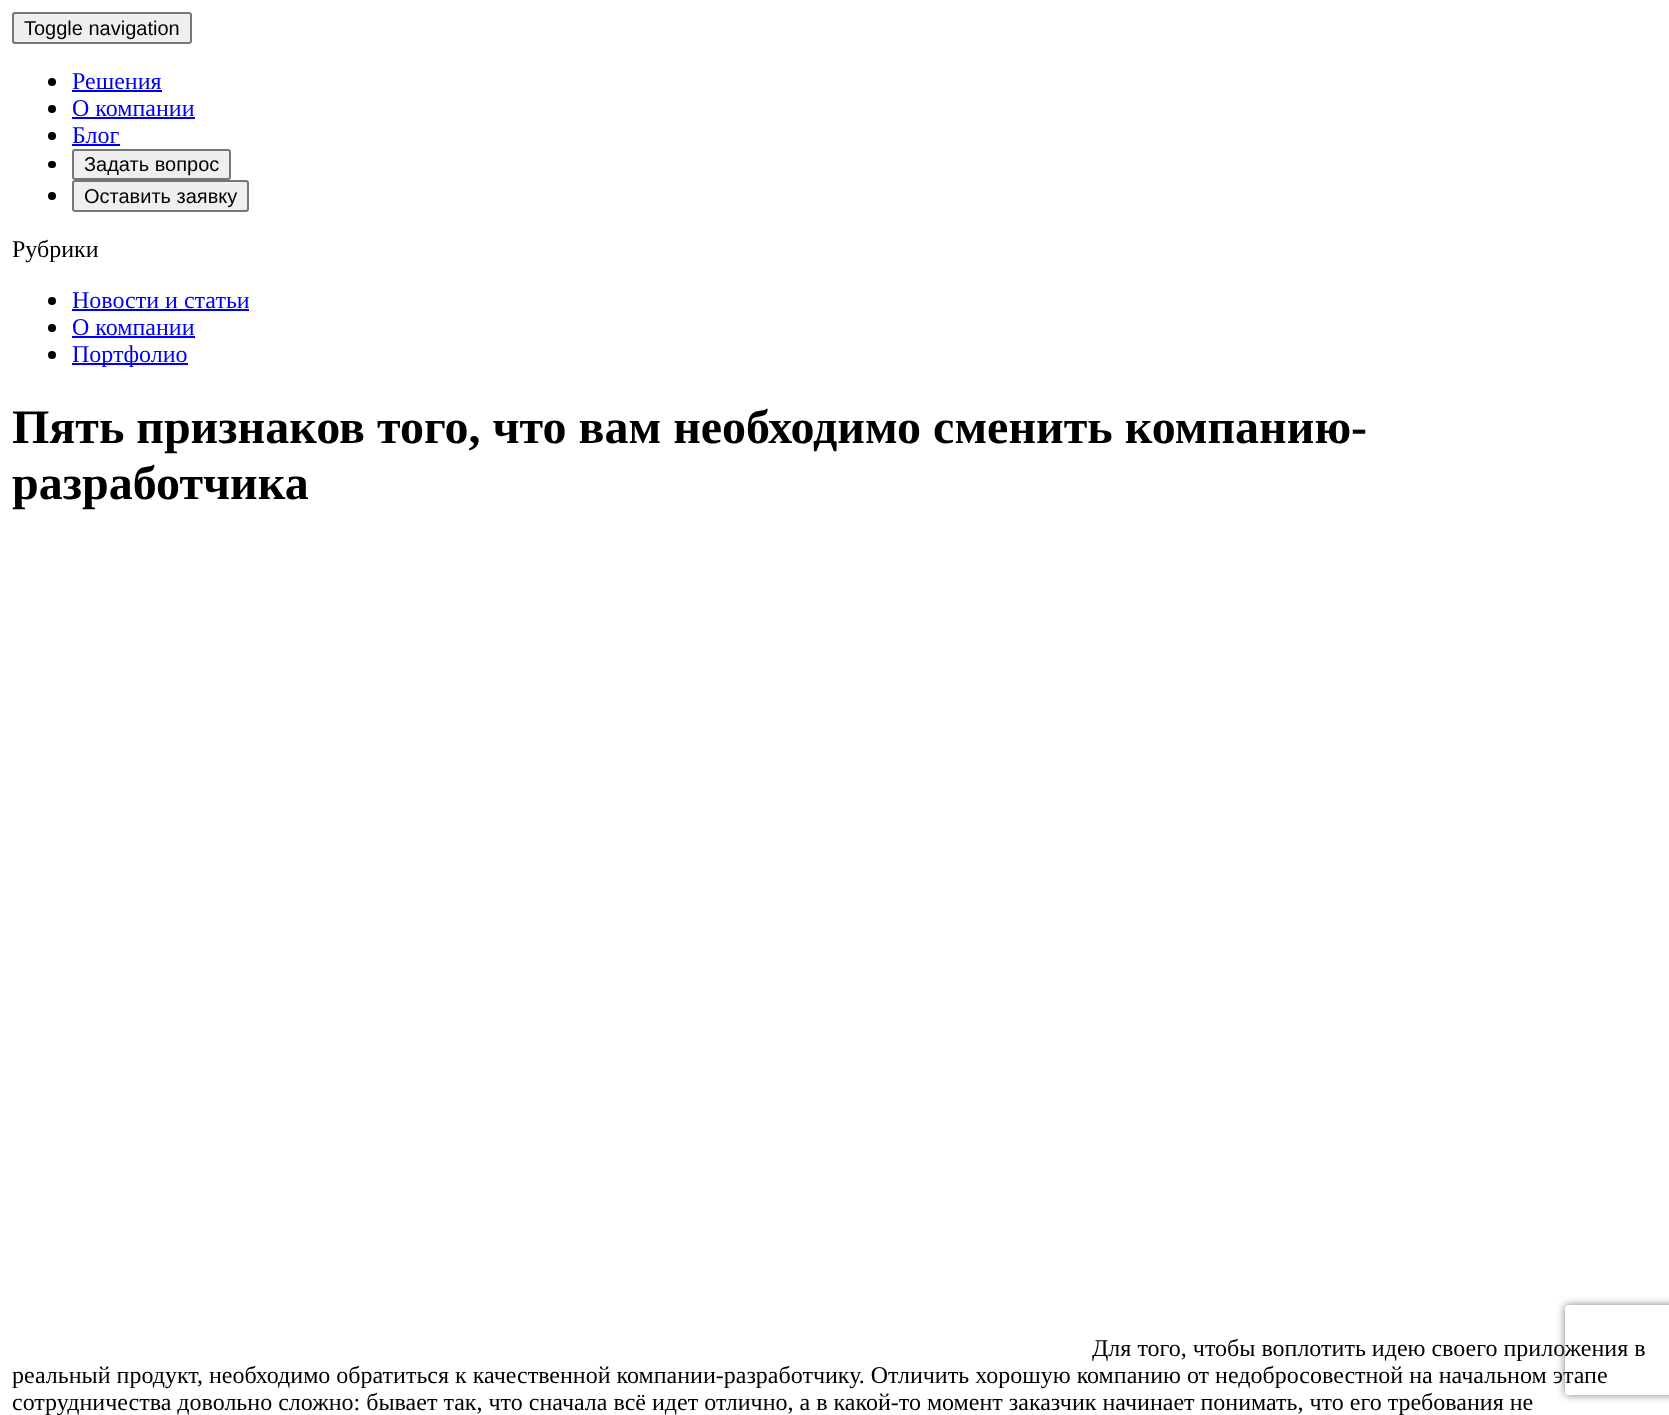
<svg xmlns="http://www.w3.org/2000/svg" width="1669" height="1415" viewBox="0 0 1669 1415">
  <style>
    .t1 { font: 20px Liberation Sans; fill: #000; }
    .t2 { font: 24px Liberation Serif; fill: #00e; }
    .t3 { font: 24px Liberation Serif; fill: #000; }
    .t4 { font: bold 48px Liberation Serif; fill: #000; }
  </style>
  <defs>
    <clipPath id="clip1"><path d="M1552 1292H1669V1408H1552ZM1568 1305H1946C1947.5 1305 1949 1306.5 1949 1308V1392C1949 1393.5 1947.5 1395 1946 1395H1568C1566.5 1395 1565 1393.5 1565 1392V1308C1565 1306.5 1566.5 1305 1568 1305Z" clip-rule="evenodd"/></clipPath>
  </defs>
  <rect width="100%" height="100%" fill="#fff"/>
  <rect x="13" y="13" width="178" height="30" rx="2" fill="#efefef" stroke="#767676" stroke-width="2"/>
  <text x="24" y="35" class="t1">Toggle navigation</text>
  <circle cx="52" cy="82" r="4" fill="#000"/>
  <text x="72" y="89" class="t2">Решения</text>
  <rect x="72" y="90" width="90" height="2" fill="#00e"/>
  <circle cx="52" cy="109" r="4" fill="#000"/>
  <text x="72" y="116" class="t2">О компании</text>
  <rect x="72" y="117" width="123" height="2" fill="#00e"/>
  <circle cx="52" cy="136" r="4" fill="#000"/>
  <text x="72" y="143" class="t2">Блог</text>
  <rect x="72" y="144" width="48" height="2" fill="#00e"/>
  <rect x="48" y="161" width="8" height="7" rx="3.5" fill="#000"/>
  <rect x="73" y="150" width="157" height="29" rx="2" fill="#efefef" stroke="#767676" stroke-width="2"/>
  <text x="84" y="171" class="t1">Задать вопрос</text>
  <circle cx="52" cy="196" r="4" fill="#000"/>
  <rect x="73" y="181" width="175" height="30" rx="2" fill="#efefef" stroke="#767676" stroke-width="2"/>
  <text x="84" y="203" class="t1">Оставить заявку</text>
  <text x="12" y="257" class="t3">Рубрики</text>
  <circle cx="52" cy="301" r="4" fill="#000"/>
  <text x="72" y="308" class="t2">Новости и статьи</text>
  <rect x="72" y="309" width="177" height="2" fill="#00e"/>
  <circle cx="52" cy="328" r="4" fill="#000"/>
  <text x="72" y="335" class="t2">О компании</text>
  <rect x="72" y="336" width="123" height="2" fill="#00e"/>
  <circle cx="52" cy="355" r="4" fill="#000"/>
  <rect x="72" y="363" width="116" height="2" fill="#00e"/>
  <text x="72" y="362" class="t2">Портфолио</text>
  <text x="12" y="443" class="t4">Пять признаков того, что вам необходимо сменить компанию-</text>
  <text x="12" y="499" class="t4">разработчика</text>
  <text x="1092" y="1356" class="t3">Для того, чтобы воплотить идею своего приложения в</text>
  <text x="12" y="1383" class="t3">реальный продукт, необходимо обратиться к качественной компании-разработчику. Отличить хорошую компанию от недобросовестной на начальном этапе</text>
  <text x="12" y="1410" class="t3">сотрудничества довольно сложно: бывает так, что сначала всё идет отлично, а в какой-то момент заказчик начинает понимать, что его требования не</text>
  <g clip-path="url(#clip1)">
    <rect x="1565" y="1305" width="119" height="90" rx="3" fill="#808080" filter="blur(4px)"/>
  </g>
</svg>
